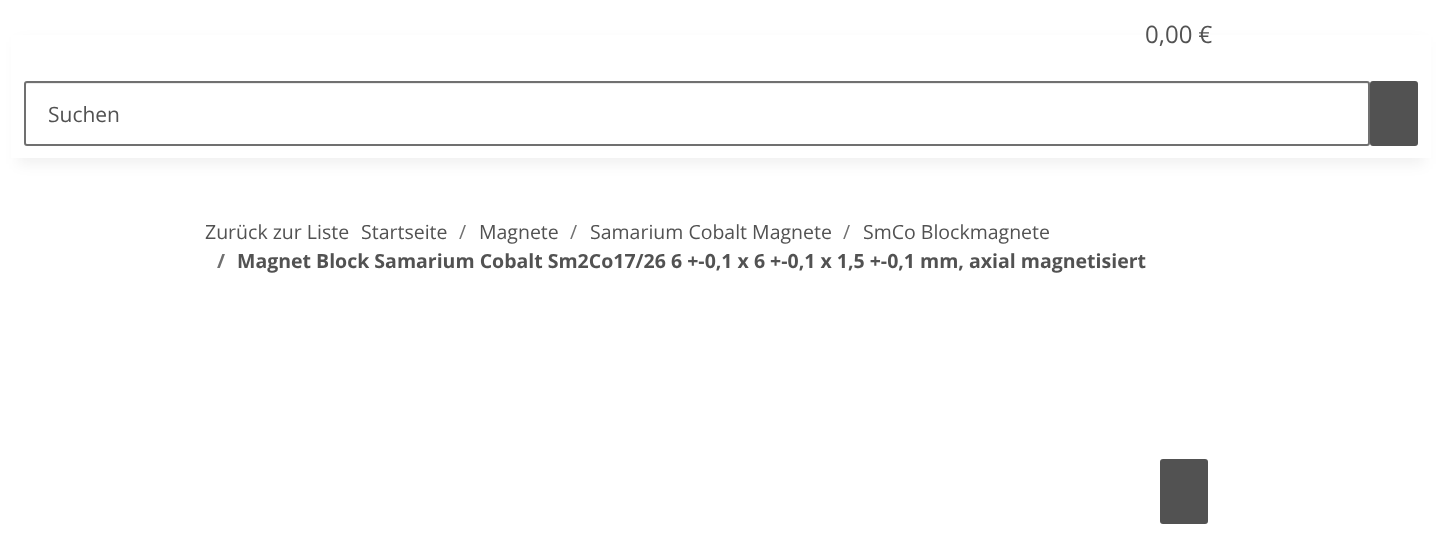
<svg xmlns="http://www.w3.org/2000/svg" width="1441" height="540" viewBox="0 0 1441 540">
  <style>
    .t1 { font: 24px Open Sans; fill: #525252; }
    .t2 { font: 21px Open Sans; fill: #525252; }
    .t3 { font: 19.5px Open Sans; fill: #525252; }
    .t4 { font: 19.5px Open Sans; fill: #707070; }
    .t5 { font: bold 19.5px Open Sans; fill: #707070; }
    .t6 { font: bold 19.5px Open Sans; fill: #525252; }
  </style>
  <rect width="100%" height="100%" fill="#fff"/>
  <rect x="18" y="42" width="1406" height="122" fill="#0000000f" filter="blur(7px)"/>
  <rect x="11" y="35" width="1420" height="123" fill="#fff"/>
  <text x="1145" y="43" class="t1">0,00 €</text>
  <path d="M27 84H1367L1368 85C1368 84 1368 83 1366 83H28C26 83 26 84 26 85Z" fill="#ececec"/>
  <rect x="25" y="82" width="1344" height="63" rx="2" fill="none" stroke="#707070" stroke-width="2"/>
  <text x="48" y="122" class="t2">Suchen</text>
  <rect x="1370" y="81" width="48" height="65" rx="3" fill="#525252"/>
  <text x="205" y="239" class="t3">Zurück zur Liste</text>
  <text x="361" y="239" class="t3">Startseite</text>
  <text x="459" y="239" class="t4">/</text>
  <text x="479" y="239" class="t3">Magnete</text>
  <text x="570" y="239" class="t4">/</text>
  <text x="590" y="239" class="t3">Samarium Cobalt Magnete</text>
  <text x="843" y="239" class="t4">/</text>
  <text x="863" y="239" class="t3">SmCo Blockmagnete</text>
  <text x="217" y="268" class="t5">/</text>
  <text x="237" y="268" class="t6">Magnet Block Samarium Cobalt Sm2Co17/26 6 +-0,1 x 6 +-0,1 x 1,5 +-0,1 mm, axial magnetisiert</text>
  <rect x="1160" y="459" width="48" height="65" rx="3" fill="#525252"/>
</svg>
